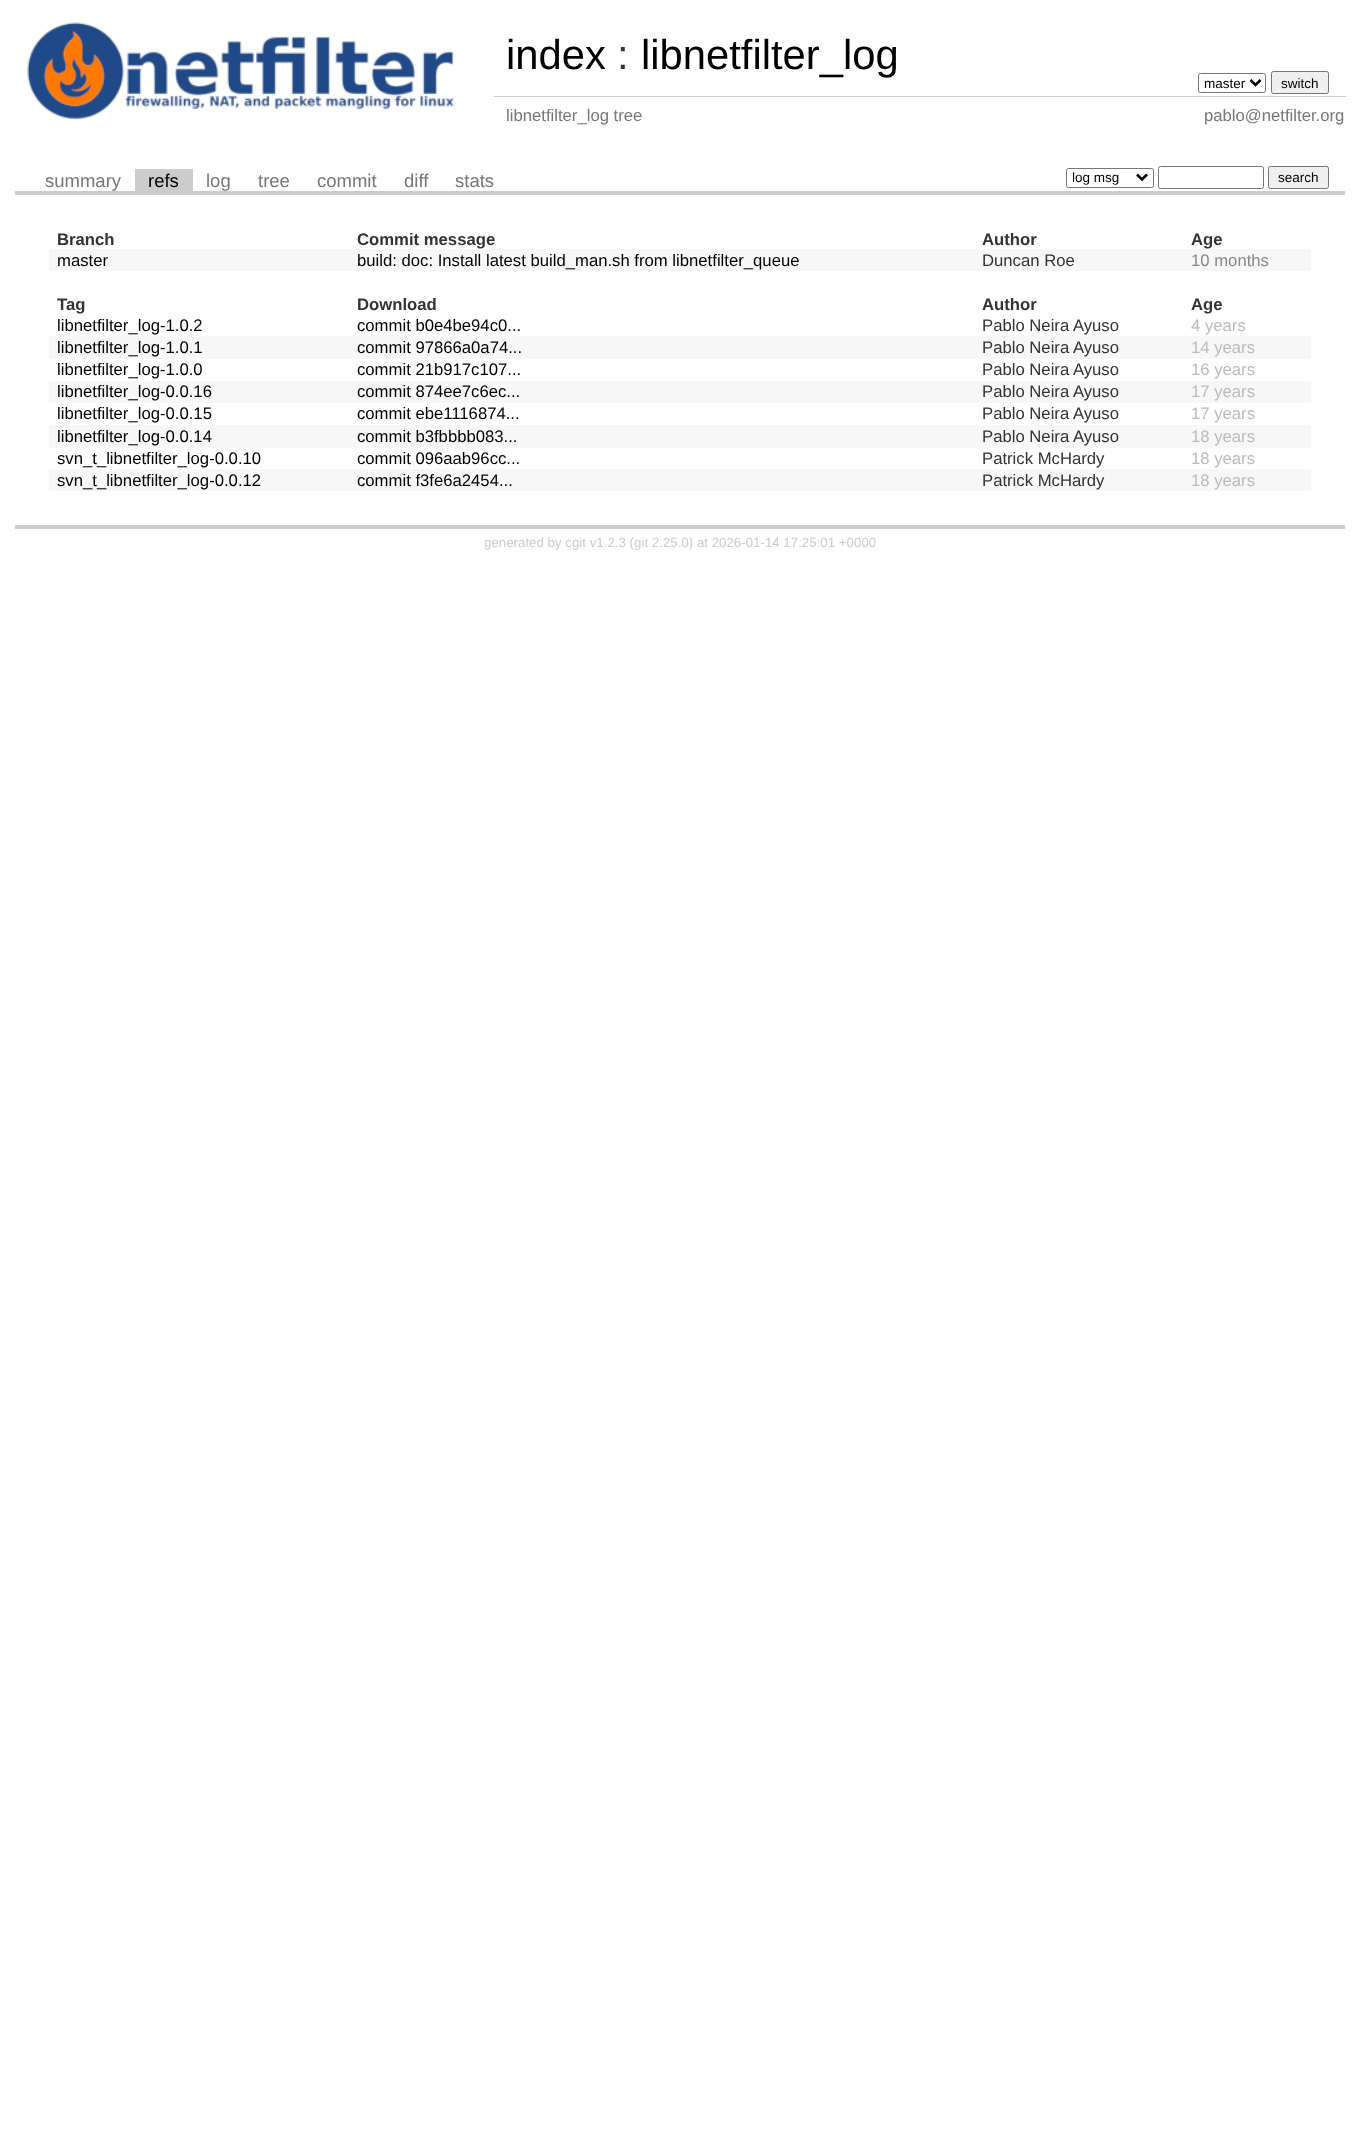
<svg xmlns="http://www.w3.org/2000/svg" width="1359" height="2134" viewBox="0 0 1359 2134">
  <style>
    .t1 { font: 41.75px Liberation Sans; fill: #000; }
    .t2 { font: 41.75px Liberation Sans; fill: #333; }
    .t3 { font: 13.5px Liberation Sans; fill: #000; }
    .t4 { font: 16.7px Liberation Sans; fill: #777; }
    .t5 { font: 18.5px Liberation Sans; fill: #777; }
    .t6 { font: 18.5px Liberation Sans; fill: #000; }
    .t7 { font: bold 16.7px Liberation Sans; fill: #333; }
    .t8 { font: 16.7px Liberation Sans; fill: #000; }
    .t9 { font: 16.7px Liberation Sans; fill: #333; }
    .t10 { font: 16.7px Liberation Sans; fill: #888; }
    .t11 { font: 16.7px Liberation Sans; fill: #bbb; }
    .t12 { font: 13.3px Liberation Sans; fill: #ccc; }
  </style>
  <defs>
    <clipPath id="clip1"><rect x="1073" y="169" width="60" height="17"/></clipPath>
  </defs>
  <rect width="100%" height="100%" fill="#fff"/>
  <image x="27" y="22" width="427" height="98" href="images/1.png"/>
  <text x="506" y="69" class="t1">index</text>
  <text x="617" y="69" class="t2">:</text>
  <text x="641" y="69" class="t1">libnetfilter_log</text>
  <rect x="1198.5" y="73.5" width="67" height="19" rx="2" fill="none" stroke="#767676"/>
  <path d="M1250.5 80L1255.5 85L1260.5 80" fill="none" stroke="#000" stroke-width="2.5"/>
  <text x="1204" y="88" class="t3">master</text>
  <rect x="1271.5" y="71.5" width="57" height="22" rx="2" fill="#efefef" stroke="#767676"/>
  <text x="1281" y="88" class="t3">switch</text>
  <text x="506" y="121" class="t4">libnetfilter_log tree</text>
  <rect x="494" y="96" width="852" height="1" fill="#ccc"/>
  <text x="1204" y="121" class="t4">pablo@netfilter.org</text>
  <rect x="15" y="191" width="1330" height="4" fill="#ccc"/>
  <text x="45" y="187" class="t5">summary</text>
  <rect x="135" y="169" width="58" height="22" fill="#ccc"/>
  <text x="148" y="187" class="t6">refs</text>
  <text x="206" y="187" class="t5">log</text>
  <text x="258" y="187" class="t5">tree</text>
  <text x="317" y="187" class="t5">commit</text>
  <text x="404" y="187" class="t5">diff</text>
  <text x="455" y="187" class="t5">stats</text>
  <rect x="1066.5" y="168.5" width="87" height="19" rx="2" fill="none" stroke="#767676"/>
  <path d="M1137 174.5L1142 179.5L1147 174.5" fill="none" stroke="#000" stroke-width="2.5"/>
  <g clip-path="url(#clip1)">
    <text x="1072" y="182" class="t3">log msg</text>
  </g>
  <rect x="1158.5" y="166.5" width="105" height="22" rx="2" fill="none" stroke="#767676"/>
  <rect x="1268.5" y="166.5" width="60" height="22" rx="2" fill="#efefef" stroke="#767676"/>
  <text x="1278" y="182" class="t3">search</text>
  <rect x="15" y="525" width="1330" height="4" fill="#ccc"/>
  <text x="57" y="245" class="t7">Branch</text>
  <text x="357" y="245" class="t7">Commit message</text>
  <text x="982" y="245" class="t7">Author</text>
  <text x="1191" y="245" class="t7">Age</text>
  <rect x="49" y="249" width="1262" height="22" fill="#f7f7f7"/>
  <text x="57" y="266" class="t8">master</text>
  <text x="357" y="266" class="t8">build: doc: Install latest build_man.sh from libnetfilter_queue</text>
  <text x="982" y="266" class="t9">Duncan Roe</text>
  <text x="1191" y="266" class="t10">10 months</text>
  <text x="57" y="310" class="t7">Tag</text>
  <text x="357" y="310" class="t7">Download</text>
  <text x="982" y="310" class="t7">Author</text>
  <text x="1191" y="310" class="t7">Age</text>
  <text x="57" y="331" class="t8">libnetfilter_log-1.0.2</text>
  <text x="357" y="331" class="t8">commit b0e4be94c0...</text>
  <text x="982" y="331" class="t9">Pablo Neira Ayuso</text>
  <text x="1191" y="331" class="t11">4 years</text>
  <rect x="49" y="336" width="1262" height="23" fill="#f7f7f7"/>
  <text x="57" y="353" class="t8">libnetfilter_log-1.0.1</text>
  <text x="357" y="353" class="t8">commit 97866a0a74...</text>
  <text x="982" y="353" class="t9">Pablo Neira Ayuso</text>
  <text x="1191" y="353" class="t11">14 years</text>
  <text x="57" y="375" class="t8">libnetfilter_log-1.0.0</text>
  <text x="357" y="375" class="t8">commit 21b917c107...</text>
  <text x="982" y="375" class="t9">Pablo Neira Ayuso</text>
  <text x="1191" y="375" class="t11">16 years</text>
  <rect x="49" y="381" width="1262" height="22" fill="#f7f7f7"/>
  <text x="57" y="397" class="t8">libnetfilter_log-0.0.16</text>
  <text x="357" y="397" class="t8">commit 874ee7c6ec...</text>
  <text x="982" y="397" class="t9">Pablo Neira Ayuso</text>
  <text x="1191" y="397" class="t11">17 years</text>
  <text x="57" y="419" class="t8">libnetfilter_log-0.0.15</text>
  <text x="357" y="419" class="t8">commit ebe1116874...</text>
  <text x="982" y="419" class="t9">Pablo Neira Ayuso</text>
  <text x="1191" y="419" class="t11">17 years</text>
  <rect x="49" y="425" width="1262" height="23" fill="#f7f7f7"/>
  <text x="57" y="442" class="t8">libnetfilter_log-0.0.14</text>
  <text x="357" y="442" class="t8">commit b3fbbbb083...</text>
  <text x="982" y="442" class="t9">Pablo Neira Ayuso</text>
  <text x="1191" y="442" class="t11">18 years</text>
  <text x="57" y="464" class="t8">svn_t_libnetfilter_log-0.0.10</text>
  <text x="357" y="464" class="t8">commit 096aab96cc...</text>
  <text x="982" y="464" class="t9">Patrick McHardy</text>
  <text x="1191" y="464" class="t11">18 years</text>
  <rect x="49" y="469" width="1262" height="22" fill="#f7f7f7"/>
  <text x="57" y="486" class="t8">svn_t_libnetfilter_log-0.0.12</text>
  <text x="357" y="486" class="t8">commit f3fe6a2454...</text>
  <text x="982" y="486" class="t9">Patrick McHardy</text>
  <text x="1191" y="486" class="t11">18 years</text>
  <text x="484" y="547" class="t12">generated by cgit v1.2.3 (git 2.25.0) at 2026-01-14 17:25:01 +0000</text>
</svg>
